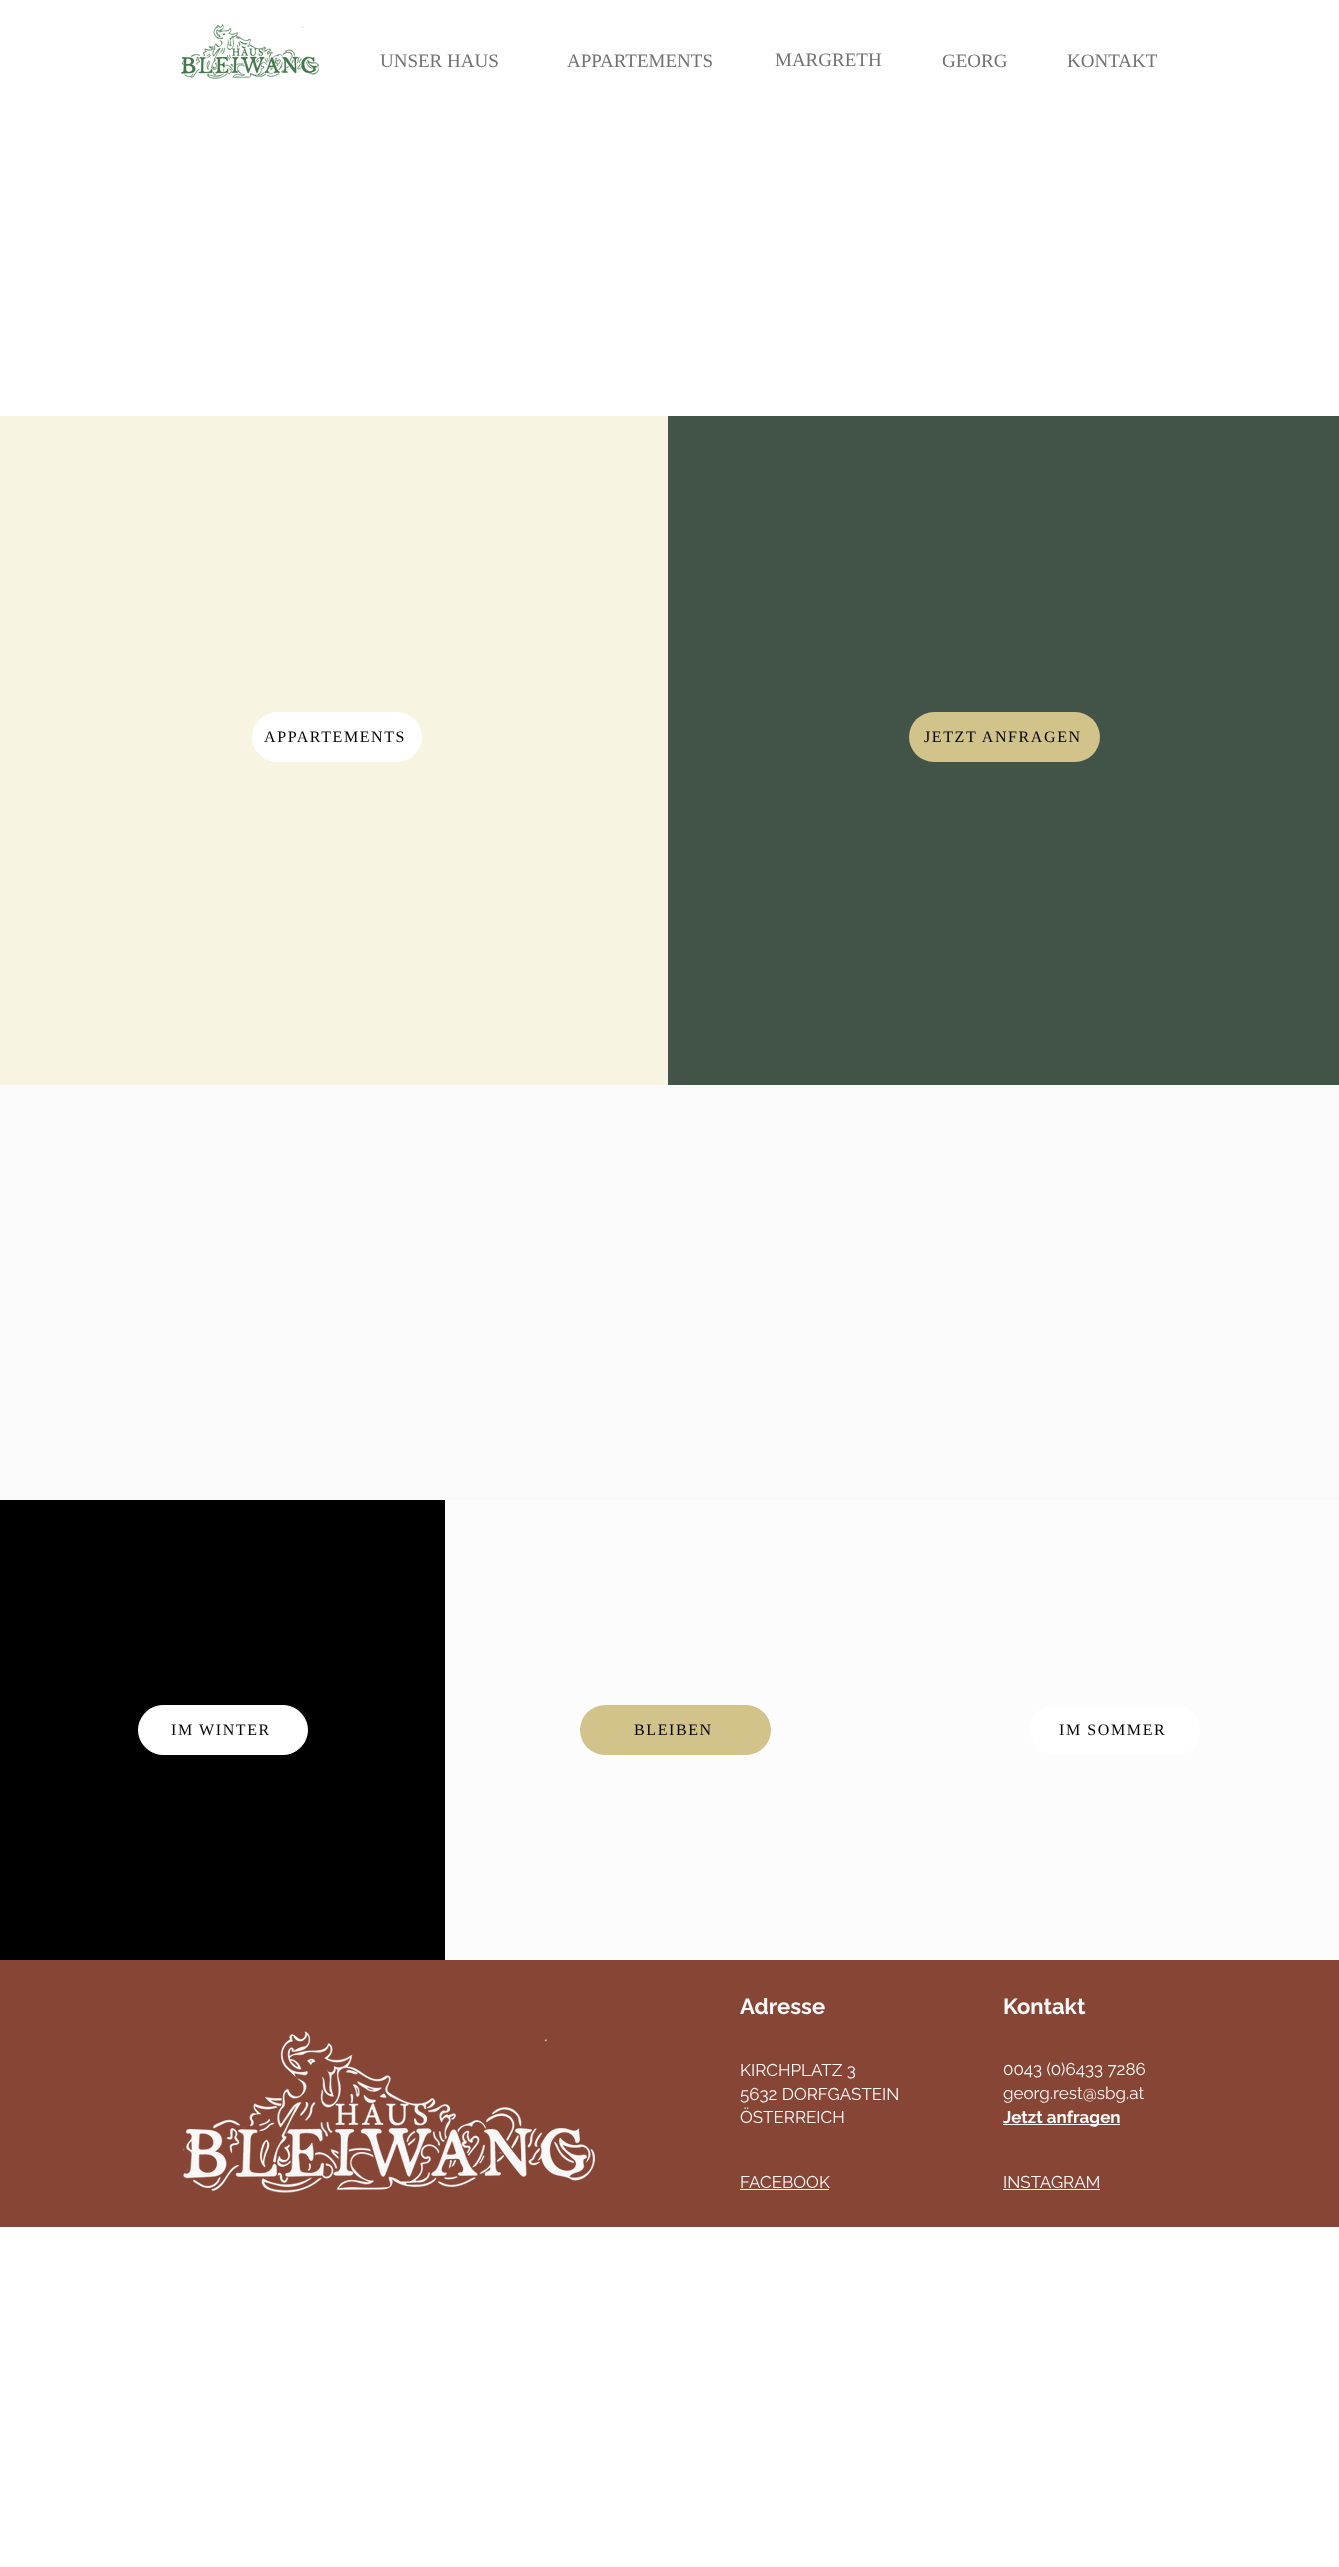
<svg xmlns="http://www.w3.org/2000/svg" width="1339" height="2567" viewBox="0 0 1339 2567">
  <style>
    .t1 { font: 19px Liberation Serif; fill: #727272; }
    .t2 { font: 16px Liberation Serif; letter-spacing: 1.6px; fill: #000; }
    .t3 { font: bold 22px Raleway; fill: #fafafa; }
    .t4 { font: 17px Raleway; fill: #fafafa; }
    .t5 { font: bold 17px Raleway; fill: #fafafa; }
  </style>
  <rect width="100%" height="100%" fill="#fff"/>
  <image x="180" y="24" width="139" height="55" href="images/1.png"/>
  <text x="380" y="67" class="t1">UNSER HAUS</text>
  <text x="567" y="67" class="t1">APPARTEMENTS</text>
  <text x="775" y="66" class="t1">MARGRETH</text>
  <text x="942" y="67" class="t1">GEORG</text>
  <text x="1067" y="67" class="t1">KONTAKT</text>
  <rect x="0" y="416" width="668" height="669" fill="#f7f5e1"/>
  <rect x="252.5" y="712.5" width="169" height="49" rx="24.5" fill="#fff" stroke="#fff"/>
  <text x="264" y="742" class="t2">APPARTEMENTS</text>
  <rect x="668" y="416" width="671" height="669" fill="#425347"/>
  <rect x="909" y="712" width="191" height="50" rx="25" fill="#d1c38a"/>
  <text x="924" y="742" class="t2">JETZT ANFRAGEN</text>
  <rect x="0" y="1085" width="1339" height="415" fill="#fafafa"/>
  <rect x="0" y="1500" width="445" height="460" fill="#000"/>
  <rect x="138.5" y="1705.5" width="169" height="49" rx="24.5" fill="#fff" stroke="#fff"/>
  <text x="171" y="1735" class="t2">IM WINTER</text>
  <rect x="445" y="1500" width="894" height="460" fill="#fcfcfc"/>
  <rect x="580" y="1705" width="191" height="50" rx="25" fill="#d1c38a"/>
  <text x="634" y="1735" class="t2">BLEIBEN</text>
  <rect x="1030" y="1705" width="170" height="50" rx="25" fill="#fff"/>
  <text x="1059" y="1735" class="t2">IM SOMMER</text>
  <rect x="0" y="1960" width="1339" height="267" fill="#864535"/>
  <image x="182" y="2031" width="413" height="162" href="images/2.png"/>
  <text x="740" y="2014" class="t3">Adresse</text>
  <text x="740" y="2076" class="t4">KIRCHPLATZ 3</text>
  <text x="740" y="2100" class="t4">5632 DORFGASTEIN</text>
  <text x="740" y="2123" class="t4">ÖSTERREICH</text>
  <text x="1003" y="2014" class="t3">Kontakt</text>
  <text x="1003" y="2075" class="t4">0043 (0)6433 7286</text>
  <text x="1003" y="2099" class="t4">georg.rest@sbg.at</text>
  <rect x="1003" y="2124" width="117" height="1" fill="#fafafa"/>
  <text x="1003" y="2123" class="t5">Jetzt anfragen</text>
  <text x="740" y="2188" class="t4">FACEBOOK</text>
  <rect x="740" y="2189" width="89" height="1" fill="#fcfcfc"/>
  <text x="1003" y="2188" class="t4">INSTAGRAM</text>
  <rect x="1003" y="2189" width="97" height="1" fill="#fafafa"/>
</svg>
